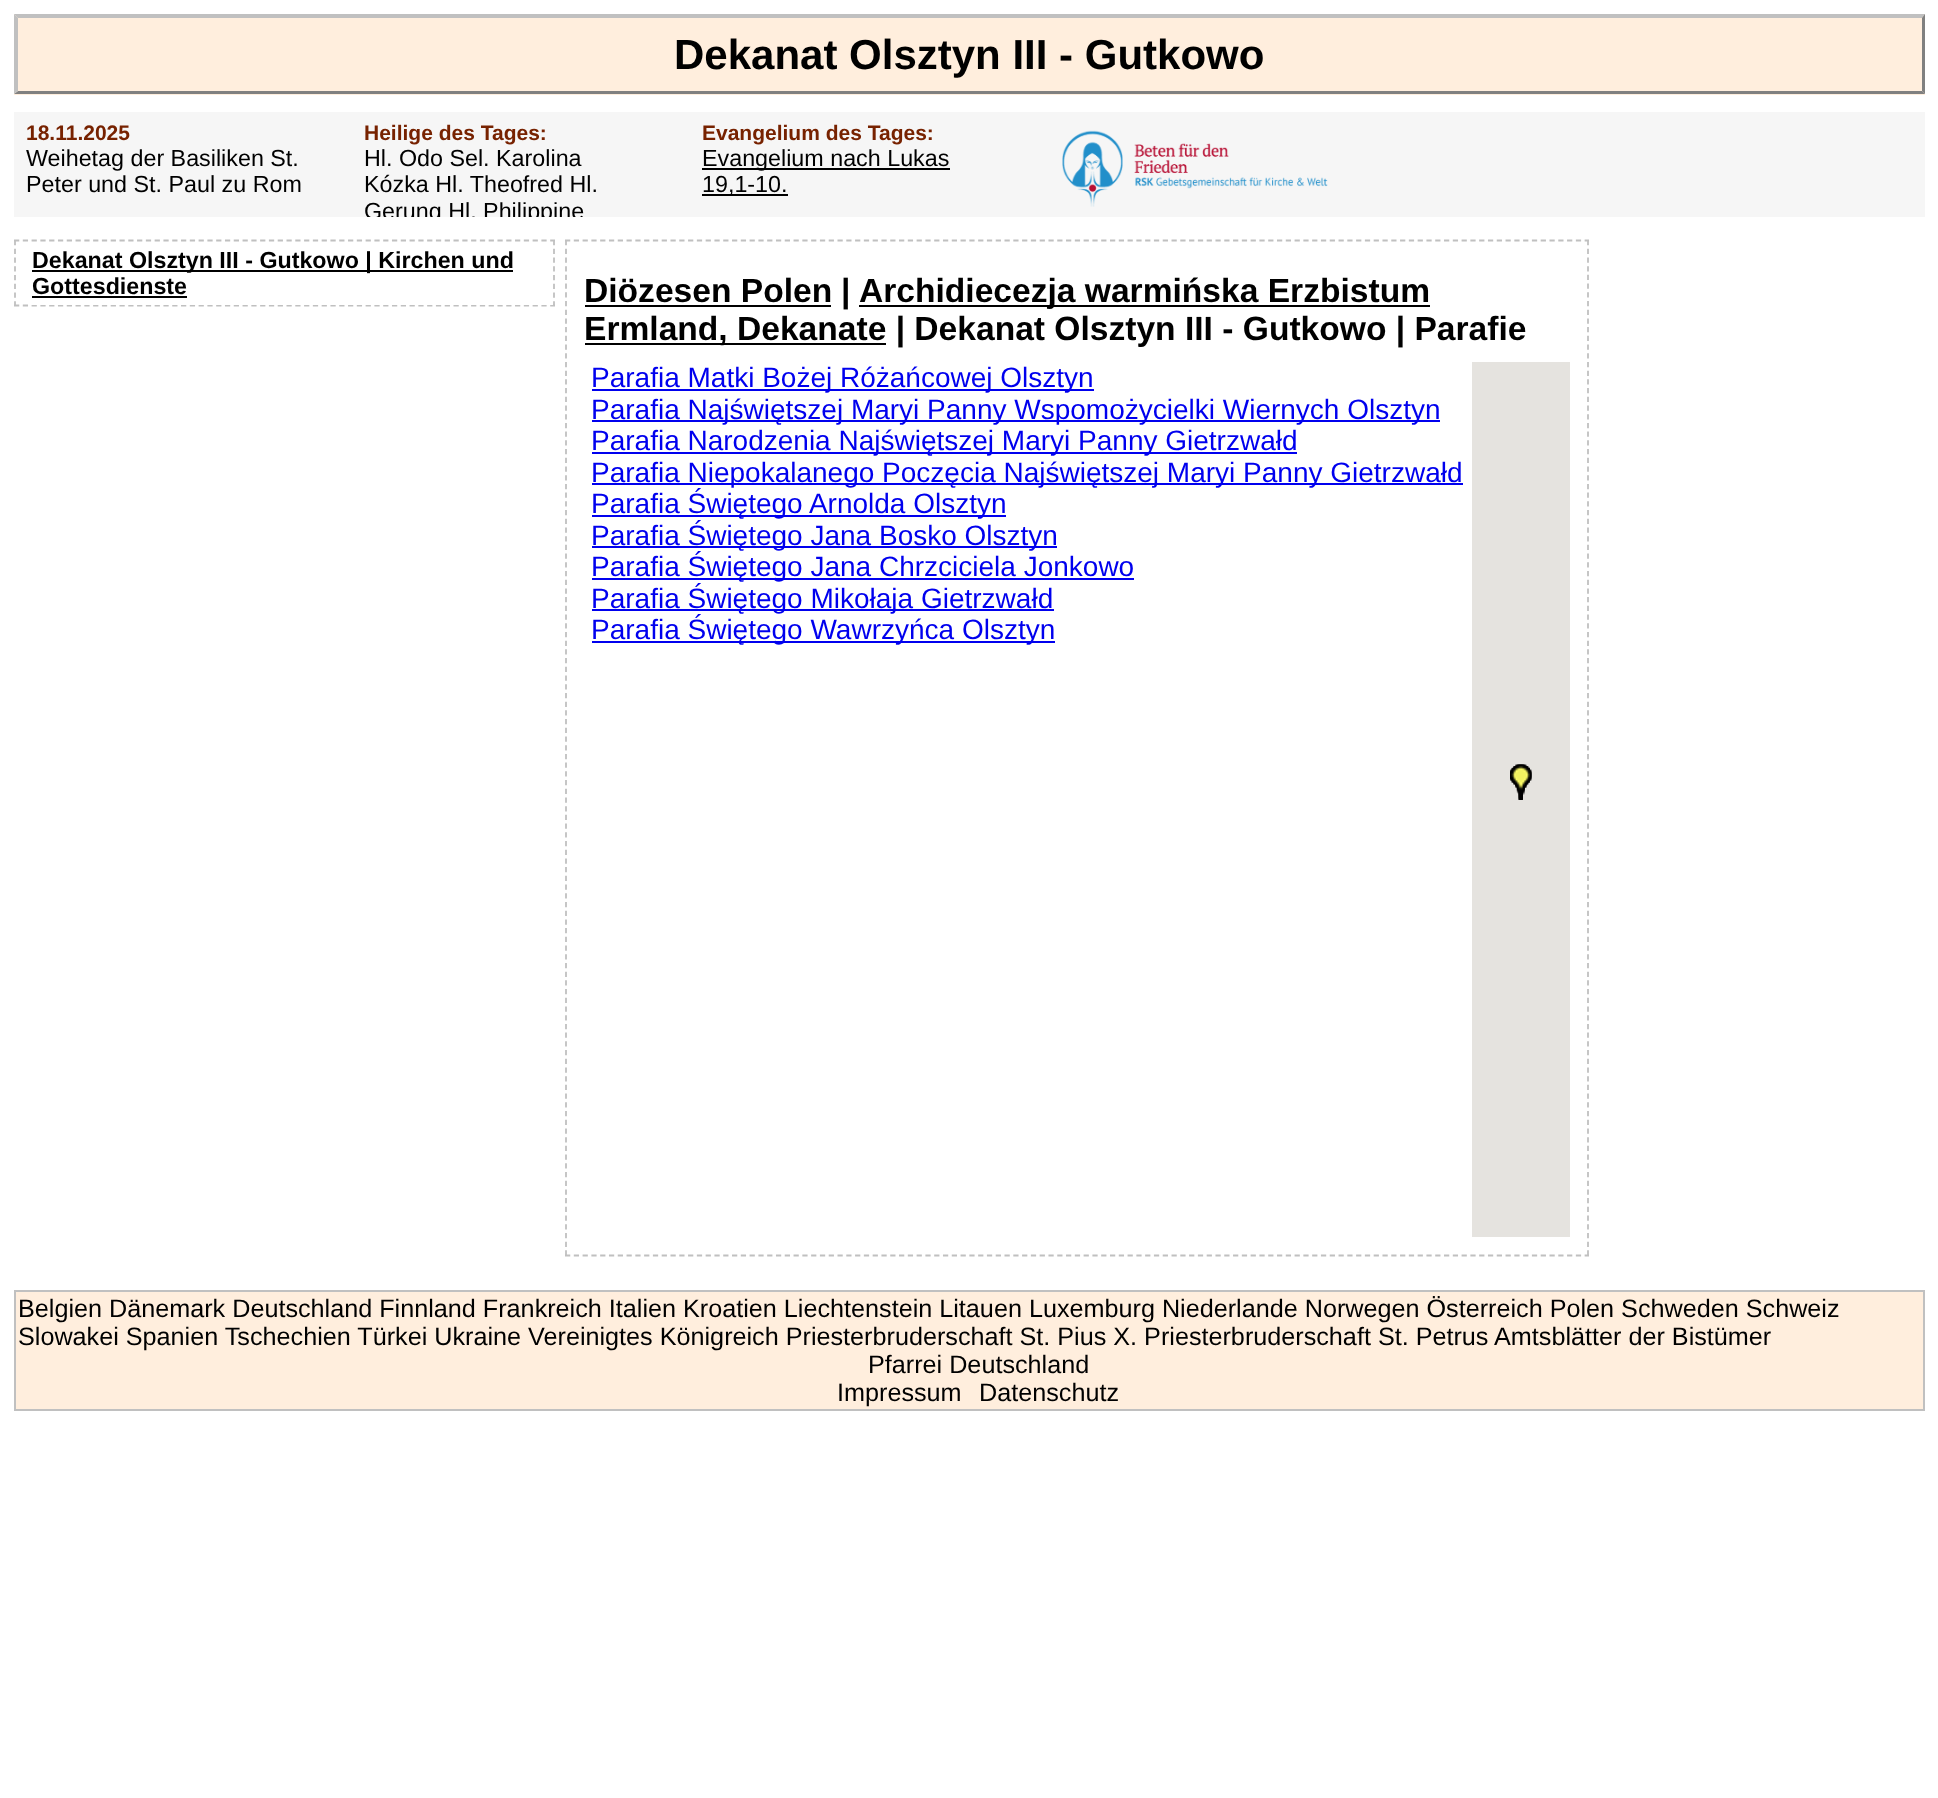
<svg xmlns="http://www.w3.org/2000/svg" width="1938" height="1798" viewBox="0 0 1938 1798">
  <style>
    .t1 { font: bold 42px Liberation Sans; fill: #000; }
    .t2 { font: bold 21px Liberation Sans; fill: #720; }
    .t3 { font: 23.3px Liberation Sans; fill: #000; }
    .t4 { font: bold 23.25px Liberation Sans; fill: #000; }
    .t5 { font: bold 33.6px Liberation Sans; fill: #000; }
    .t6 { font: 28px Liberation Sans; fill: #00e; }
    .t7 { font: 25.2px Liberation Sans; fill: #000; }
  </style>
  <defs>
    <clipPath id="clip1"><rect x="14" y="112" width="1911" height="105"/></clipPath>
  </defs>
  <rect width="100%" height="100%" fill="#fff"/>
  <rect x="14" y="14" width="1911" height="81" fill="#fed"/>
  <path d="M14 14H1925L1922 18H18Z" fill="#c0c0c0"/>
  <path d="M1925 14V94L1922 91V18Z" fill="#808080"/>
  <path d="M1925 94H14L18 91H1922Z" fill="#808080"/>
  <path d="M14 94V14L18 18V91Z" fill="#c0c0c0"/>
  <text x="674" y="69" class="t1">Dekanat Olsztyn III - Gutkowo</text>
  <rect x="14" y="112" width="1911" height="105" fill="#f6f6f6"/>
  <text x="26" y="140" class="t2">18.11.2025</text>
  <text x="26" y="166" class="t3">Weihetag der Basiliken St.</text>
  <text x="26" y="192" class="t3">Peter und St. Paul zu Rom</text>
  <text x="364" y="140" class="t2">Heilige des Tages:</text>
  <text x="364" y="166" class="t3">Hl. Odo Sel. Karolina</text>
  <text x="364" y="192" class="t3">Kózka Hl. Theofred Hl.</text>
  <g clip-path="url(#clip1)">
    <text x="364" y="219" class="t3">Gerung Hl. Philippine</text>
  </g>
  <text x="702" y="140" class="t2">Evangelium des Tages:</text>
  <rect x="702" y="168" width="248" height="2" fill="#000"/>
  <text x="702" y="166" class="t3">Evangelium nach Lukas</text>
  <rect x="702" y="194" width="86" height="2" fill="#000"/>
  <text x="702" y="192" class="t3">19,1-10.</text>
  <image x="1062" y="130" width="266" height="77" href="images/1.png"/>
  <path d="M14 240.5H555" fill="none" stroke="#c0c0c0" stroke-width="1.8" stroke-dasharray="5.25 3.54"/>
  <path d="M554 240V306" fill="none" stroke="#c0c0c0" stroke-width="1.8" stroke-dasharray="5.25 3.5"/>
  <path d="M14 305.5H555" fill="none" stroke="#c0c0c0" stroke-width="1.8" stroke-dasharray="5.25 3.54"/>
  <path d="M15 240V306" fill="none" stroke="#c0c0c0" stroke-width="1.8" stroke-dasharray="5.25 3.5"/>
  <rect x="31" y="304" width="522" height="1" fill="#fff"/>
  <rect x="32" y="270" width="481" height="2" fill="#000"/>
  <text x="32" y="268" class="t4">Dekanat Olsztyn III - Gutkowo | Kirchen und</text>
  <text x="32" y="294" class="t4">Gottesdienste</text>
  <rect x="32" y="296" width="155" height="2" fill="#000"/>
  <path d="M565 240.5H1589" fill="none" stroke="#c0c0c0" stroke-width="1.8" stroke-dasharray="5.25 3.54"/>
  <path d="M1588 240V1256.5" fill="none" stroke="#c0c0c0" stroke-width="1.8" stroke-dasharray="5.25 3.46"/>
  <path d="M565 1255.5H1589" fill="none" stroke="#c0c0c0" stroke-width="1.8" stroke-dasharray="5.25 3.54"/>
  <path d="M566 240V1256.5" fill="none" stroke="#c0c0c0" stroke-width="1.8" stroke-dasharray="5.25 3.46"/>
  <text x="584" y="302" class="t5">Diözesen Polen</text>
  <rect x="585" y="305" width="246" height="2" fill="#000"/>
  <text x="841" y="302" class="t5">|</text>
  <rect x="859" y="305" width="571" height="2" fill="#000"/>
  <text x="859" y="302" class="t5">Archidiecezja warmińska Erzbistum</text>
  <rect x="585" y="343" width="301" height="2" fill="#000"/>
  <text x="584" y="340" class="t5">Ermland, Dekanate | Dekanat Olsztyn III - Gutkowo | Parafie</text>
  <rect x="592" y="389" width="502" height="2" fill="#00e"/>
  <text x="591" y="387" class="t6">Parafia Matki Bożej Różańcowej Olsztyn</text>
  <rect x="592" y="420" width="848" height="2" fill="#00e"/>
  <text x="591" y="419" class="t6">Parafia Najświętszej Maryi Panny Wspomożycielki Wiernych Olsztyn</text>
  <rect x="592" y="452" width="705" height="2" fill="#00e"/>
  <text x="591" y="450" class="t6">Parafia Narodzenia Najświętszej Maryi Panny Gietrzwałd</text>
  <rect x="592" y="483" width="871" height="2" fill="#00e"/>
  <text x="591" y="482" class="t6">Parafia Niepokalanego Poczęcia Najświętszej Maryi Panny Gietrzwałd</text>
  <rect x="592" y="515" width="414" height="2" fill="#00e"/>
  <text x="591" y="513" class="t6">Parafia Świętego Arnolda Olsztyn</text>
  <rect x="592" y="546" width="465" height="2" fill="#00e"/>
  <text x="591" y="545" class="t6">Parafia Świętego Jana Bosko Olsztyn</text>
  <rect x="592" y="578" width="542" height="2" fill="#00e"/>
  <text x="591" y="576" class="t6">Parafia Świętego Jana Chrzciciela Jonkowo</text>
  <rect x="592" y="609" width="462" height="2" fill="#00e"/>
  <text x="591" y="608" class="t6">Parafia Świętego Mikołaja Gietrzwałd</text>
  <rect x="592" y="641" width="463" height="2" fill="#00e"/>
  <text x="591" y="639" class="t6">Parafia Świętego Wawrzyńca Olsztyn</text>
  <rect x="1472" y="362" width="98" height="875" fill="#e5e3df"/>
  <image x="1510" y="764" width="22" height="36" href="images/2.png"/>
  <image x="1510" y="764" width="22" height="36" href="images/3.png"/>
  <image x="1510" y="764" width="22" height="36" href="images/4.png"/>
  <image x="1510" y="764" width="22" height="36" href="images/5.png"/>
  <image x="1510" y="764" width="22" height="36" href="images/6.png"/>
  <image x="1510" y="764" width="22" height="36" href="images/7.png"/>
  <image x="1510" y="764" width="22" height="36" href="images/8.png"/>
  <image x="1510" y="764" width="22" height="36" href="images/9.png"/>
  <image x="1510" y="764" width="22" height="36" href="images/10.png"/>
  <rect x="15" y="1291" width="1909" height="119" fill="#fed" stroke="#c0c0c0" stroke-width="2"/>
  <text x="18" y="1317" class="t7">Belgien Dänemark Deutschland Finnland Frankreich Italien Kroatien Liechtenstein Litauen Luxemburg Niederlande Norwegen Österreich Polen Schweden Schweiz</text>
  <text x="18" y="1345" class="t7">Slowakei Spanien Tschechien Türkei Ukraine Vereinigtes Königreich Priesterbruderschaft St. Pius X. Priesterbruderschaft St. Petrus Amtsblätter der Bistümer</text>
  <text x="868" y="1373" class="t7">Pfarrei Deutschland</text>
  <text x="837" y="1401" class="t7">Impressum</text>
  <text x="979" y="1401" class="t7">Datenschutz</text>
</svg>
